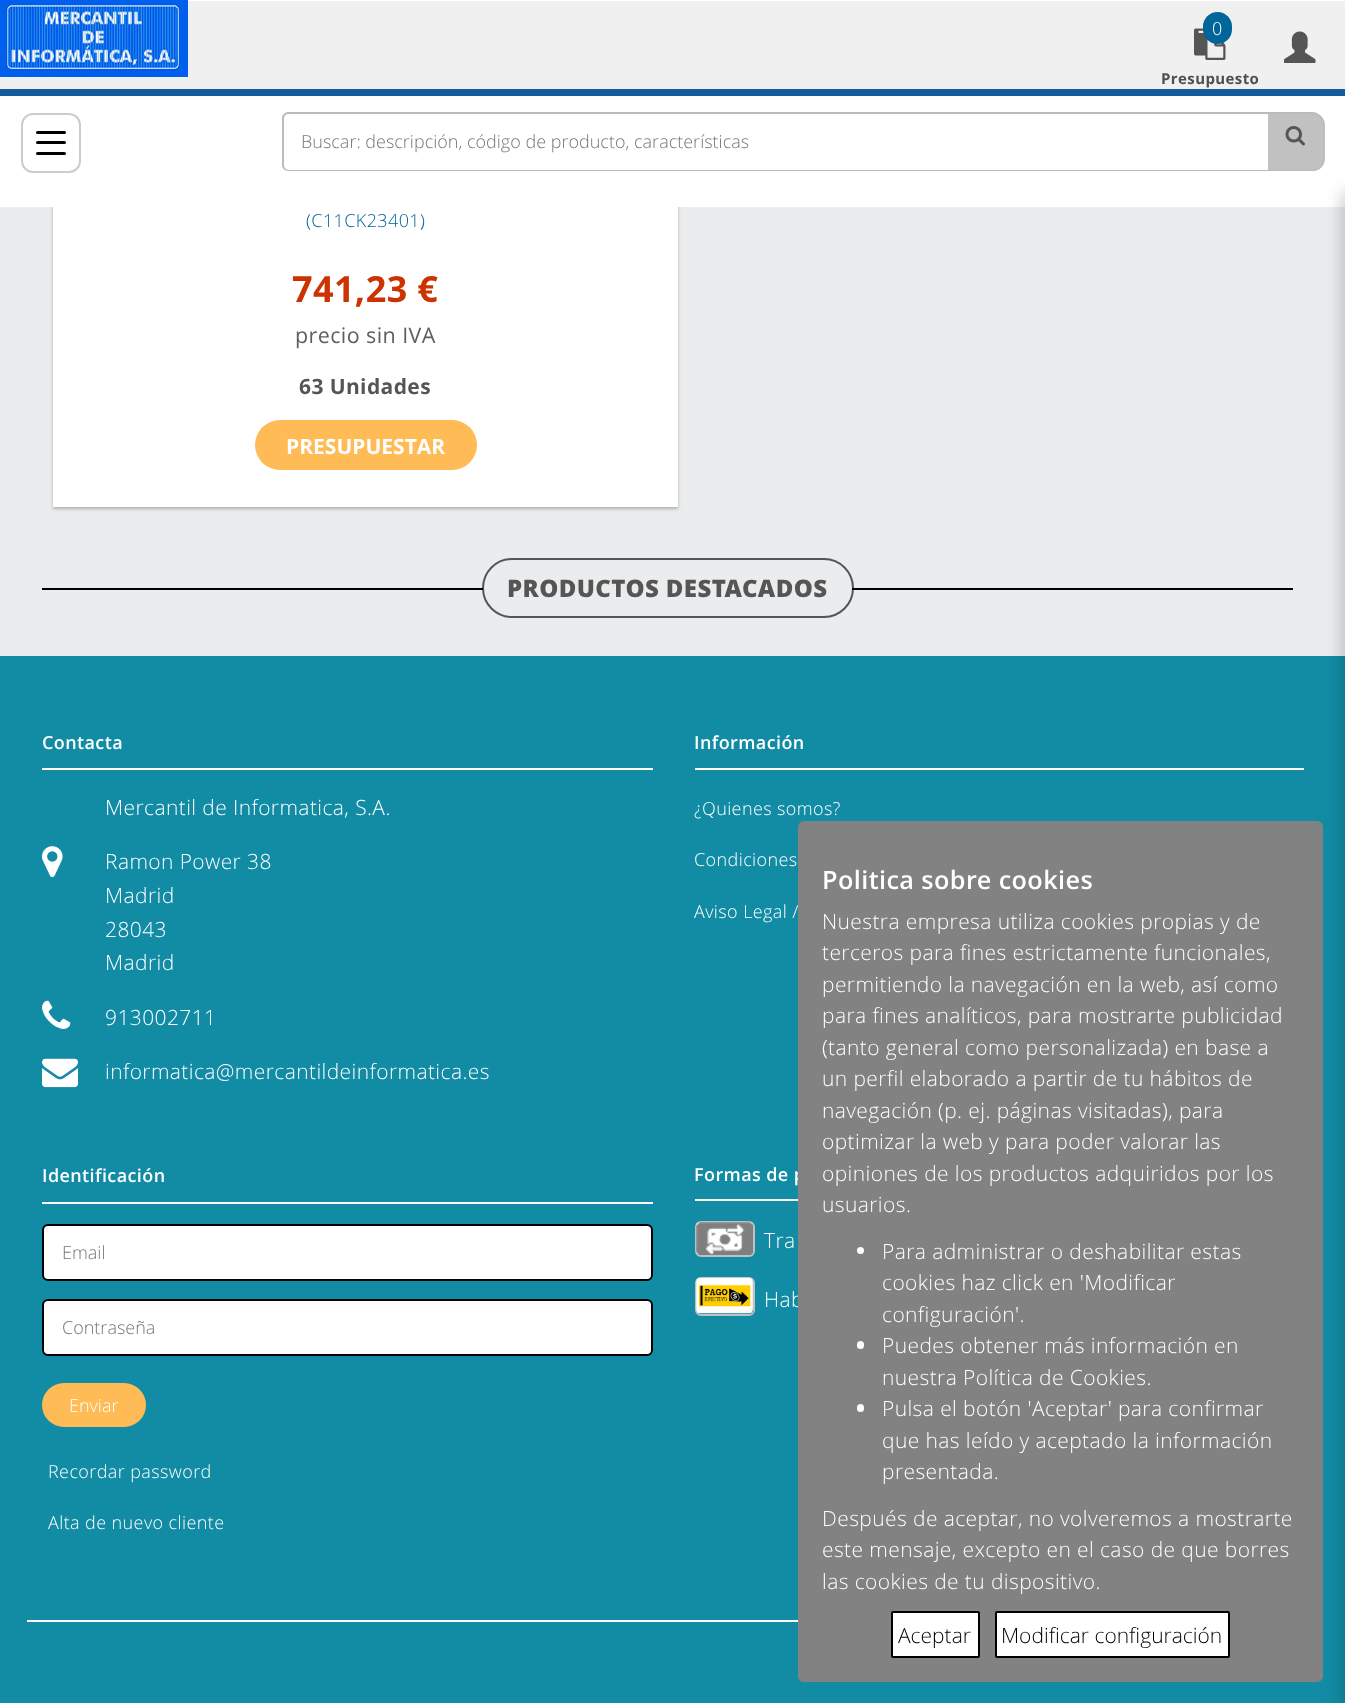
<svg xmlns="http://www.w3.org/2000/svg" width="1345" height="1703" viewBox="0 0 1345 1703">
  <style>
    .t1 { font: 300 18px Open Sans; letter-spacing: 0.4px; fill: #fff; }
    .t2 { font: bold 15px Open Sans; letter-spacing: 0.4px; fill: #4f4f4f; }
    .t3 { font: 300 18px Open Sans; fill: #757575; }
    .t4 { font: 600 18px Open Sans; letter-spacing: 0.4px; fill: #fff; }
    .t5 { font: 300 21px Open Sans; letter-spacing: 0.4px; fill: #fff; }
    .t6 { font: 300 18px Open Sans; letter-spacing: 0.4px; fill: #069; }
    .t7 { font: bold 36px Open Sans; letter-spacing: 0.4px; fill: #c30; }
    .t8 { font: 21.5px Open Sans; letter-spacing: 0.4px; fill: #5f5f5f; }
    .t9 { font: bold 21px Open Sans; letter-spacing: 0.4px; fill: #555; }
    .t10 { font: bold 21px Open Sans; fill: #fff; }
    .t11 { font: 800 24px Open Sans; letter-spacing: 0.4px; fill: #555; }
    .t12 { font: 300 18px Open Sans; fill: #fff; }
    .t13 { font: 600 25.25px Open Sans; letter-spacing: 0.4px; fill: #fff; }
    .t14 { font: 300 21px Open Sans; fill: #000; }
  </style>
  <rect width="100%" height="100%" fill="#ebeced"/>
  <rect x="53" y="-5" width="625" height="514" fill="#00000030" filter="blur(1.5px)"/>
  <rect x="53" y="-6" width="625" height="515" fill="#00000012" filter="blur(2px)"/>
  <rect x="0" y="1" width="1345" height="88" fill="#f0f0f0"/>
  <image x="0" y="0" width="188" height="77" href="images/1.png"/>
  <rect x="188" y="0" width="1157" height="1" fill="#fff"/>
  <rect x="0" y="96" width="1345" height="111" fill="#fff"/>
  <rect x="0" y="89" width="1345" height="7" fill="#155b9e"/>
  <image x="1194" y="28" width="32" height="32" href="images/2.png"/>
  <rect x="1203" y="12" width="29" height="32" rx="14.5" fill="#069"/>
  <text x="1212" y="35" class="t1">0</text>
  <text x="1161" y="84" class="t2">Presupuesto</text>
  <path d="M288 112H1268V171H288C285 171 282 168 282 165V118C282 115 285 112 288 112ZM288 114H1268V170H288C286 170 284 167 284 165V118C284 116 286 114 288 114Z" fill="#bbb" fill-rule="evenodd"/>
  <text x="301" y="148" class="t3">Buscar: descripción, código de producto, características</text>
  <path d="M1268 113H1313C1319.5 113 1325 118.5 1325 125V159C1325 165.5 1319.5 171 1313 171H1268Z" fill="#c1c1c1"/>
  <path d="M1268 112H1312C1319 112 1324 118 1324 124V159C1324 166 1319 171 1312 171H1268ZM1268 114H1312C1318 114 1323 119 1323 124V159C1323 165 1318 170 1312 170H1268Z" fill="#bbb" fill-rule="evenodd"/>
  <image x="1285" y="126" width="20" height="20" href="images/3.png"/>
  <rect x="0" y="656" width="1345" height="1047" fill="#128ca5"/>
  <text x="694" y="918" class="t1">Aviso Legal /</text>
  <text x="694" y="1181" class="t4">Formas de p</text>
  <text x="764" y="1307" class="t5">Hab</text>
  <rect x="798" y="821" width="525" height="861" rx="6" fill="#828282"/>
  <rect x="1341" y="192" width="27" height="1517" fill="#0000002e" filter="blur(7.5px)"/>
  <image x="1284" y="31" width="32" height="32" href="images/4.png"/>
  <rect x="22" y="114" width="58" height="58" rx="11" fill="none" stroke="#ccc" stroke-width="2"/>
  <rect x="36" y="131" width="30" height="3" rx="1.5" fill="#000"/>
  <rect x="36" y="141" width="30" height="3" rx="1.5" fill="#000"/>
  <rect x="36" y="152" width="30" height="3" rx="1.5" fill="#000"/>
  <rect x="53" y="207" width="625" height="300" fill="#fff"/>
  <text x="306" y="227" class="t6">(C11CK23401)</text>
  <text x="292" y="302" class="t7">741,23 €</text>
  <text x="295" y="343" class="t8">precio sin IVA</text>
  <text x="299" y="394" class="t9">63 Unidades</text>
  <rect x="255" y="420" width="222" height="50" rx="25" fill="#fb5"/>
  <text x="286" y="454" class="t10">PRESUPUESTAR</text>
  <rect x="483" y="559" width="370" height="58" rx="29" fill="none" stroke="#555" stroke-width="2"/>
  <rect x="42" y="588" width="441" height="2" fill="#000"/>
  <text x="507" y="597" class="t11">PRODUCTOS DESTACADOS</text>
  <rect x="852" y="588" width="441" height="2" fill="#000"/>
  <rect x="42" y="768" width="611" height="2" fill="#fff"/>
  <text x="42" y="749" class="t4">Contacta</text>
  <text x="105" y="815" class="t5">Mercantil de Informatica, S.A.</text>
  <image x="42" y="846" width="21" height="32" href="images/5.png"/>
  <text x="105" y="869" class="t5">Ramon Power 38</text>
  <text x="105" y="903" class="t5">Madrid</text>
  <text x="105" y="937" class="t5">28043</text>
  <text x="105" y="970" class="t5">Madrid</text>
  <image x="42" y="1000" width="29" height="29" href="images/6.png"/>
  <text x="105" y="1025" class="t5">913002711</text>
  <image x="42" y="1058" width="36" height="30" href="images/7.png"/>
  <text x="105" y="1079" class="t5">informatica@mercantildeinformatica.es</text>
  <rect x="695" y="768" width="609" height="2" fill="#fff"/>
  <text x="694" y="749" class="t4">Información</text>
  <text x="694" y="815" class="t1">¿Quienes somos?</text>
  <text x="694" y="866" class="t1">Condiciones</text>
  <rect x="42" y="1202" width="611" height="2" fill="#fff"/>
  <text x="42" y="1182" class="t4">Identificación</text>
  <rect x="43" y="1225" width="609" height="55" rx="5" fill="#fff" stroke="#000" stroke-width="2"/>
  <text x="62" y="1259" class="t3">Email</text>
  <rect x="43" y="1300" width="609" height="55" rx="5" fill="#fff" stroke="#000" stroke-width="2"/>
  <text x="62" y="1334" class="t3">Contraseña</text>
  <rect x="42" y="1383" width="104" height="44" rx="22" fill="#fb5"/>
  <text x="69" y="1412" class="t12">Enviar</text>
  <text x="48" y="1478" class="t1">Recordar password</text>
  <text x="48" y="1529" class="t1">Alta de nuevo cliente</text>
  <rect x="695" y="1199" width="103" height="2" fill="#fff"/>
  <rect x="696" y="1222" width="58" height="34" rx="5" fill="none" stroke="#c1c1c1" stroke-width="2"/>
  <image x="696" y="1222" width="57" height="33" href="images/8.png"/>
  <text x="764" y="1248" class="t5">Tra</text>
  <rect x="696" y="1278" width="58" height="37" rx="5" fill="none" stroke="#c1c1c1" stroke-width="2"/>
  <image x="696" y="1277" width="57" height="37" href="images/9.png"/>
  <rect x="27" y="1620" width="771" height="2" fill="#fff"/>
  <text x="822" y="889" class="t13">Politica sobre cookies</text>
  <text x="822" y="929" class="t5">Nuestra empresa utiliza cookies propias y de</text>
  <text x="822" y="960" class="t5">terceros para fines estrictamente funcionales,</text>
  <text x="822" y="992" class="t5">permitiendo la navegación en la web, así como</text>
  <text x="822" y="1023" class="t5">para fines analíticos, para mostrarte publicidad</text>
  <text x="822" y="1055" class="t5">(tanto general como personalizada) en base a</text>
  <text x="822" y="1086" class="t5">un perfil elaborado a partir de tu hábitos de</text>
  <text x="822" y="1118" class="t5">navegación (p. ej. páginas visitadas), para</text>
  <text x="822" y="1149" class="t5">optimizar la web y para poder valorar las</text>
  <text x="822" y="1181" class="t5">opiniones de los productos adquiridos por los</text>
  <text x="822" y="1212" class="t5">usuarios.</text>
  <circle cx="860.5" cy="1250.5" r="3.5" fill="#fff"/>
  <text x="882" y="1259" class="t5">Para administrar o deshabilitar estas</text>
  <text x="882" y="1290" class="t5">cookies haz click en 'Modificar</text>
  <text x="882" y="1322" class="t5">configuración'.</text>
  <rect x="857" y="1341" width="7" height="8" rx="3.5" fill="#fff"/>
  <text x="882" y="1353" class="t5">Puedes obtener más información en</text>
  <text x="882" y="1385" class="t5">nuestra Política de Cookies.</text>
  <rect x="857" y="1404" width="7" height="8" rx="3.5" fill="#fff"/>
  <text x="882" y="1416" class="t5">Pulsa el botón 'Aceptar' para confirmar</text>
  <text x="882" y="1448" class="t5">que has leído y aceptado la información</text>
  <text x="882" y="1479" class="t5">presentada.</text>
  <text x="822" y="1526" class="t5">Después de aceptar, no volveremos a mostrarte</text>
  <text x="822" y="1557" class="t5">este mensaje, excepto en el caso de que borres</text>
  <text x="822" y="1589" class="t5">las cookies de tu dispositivo.</text>
  <rect x="892" y="1612" width="87" height="45" rx="1" fill="#fff" stroke="#000" stroke-width="2"/>
  <text x="898" y="1643" class="t14">Aceptar</text>
  <rect x="996" y="1612" width="233" height="45" rx="1" fill="#fff" stroke="#000" stroke-width="2"/>
  <text x="1001" y="1643" class="t14">Modificar configuración</text>
</svg>
